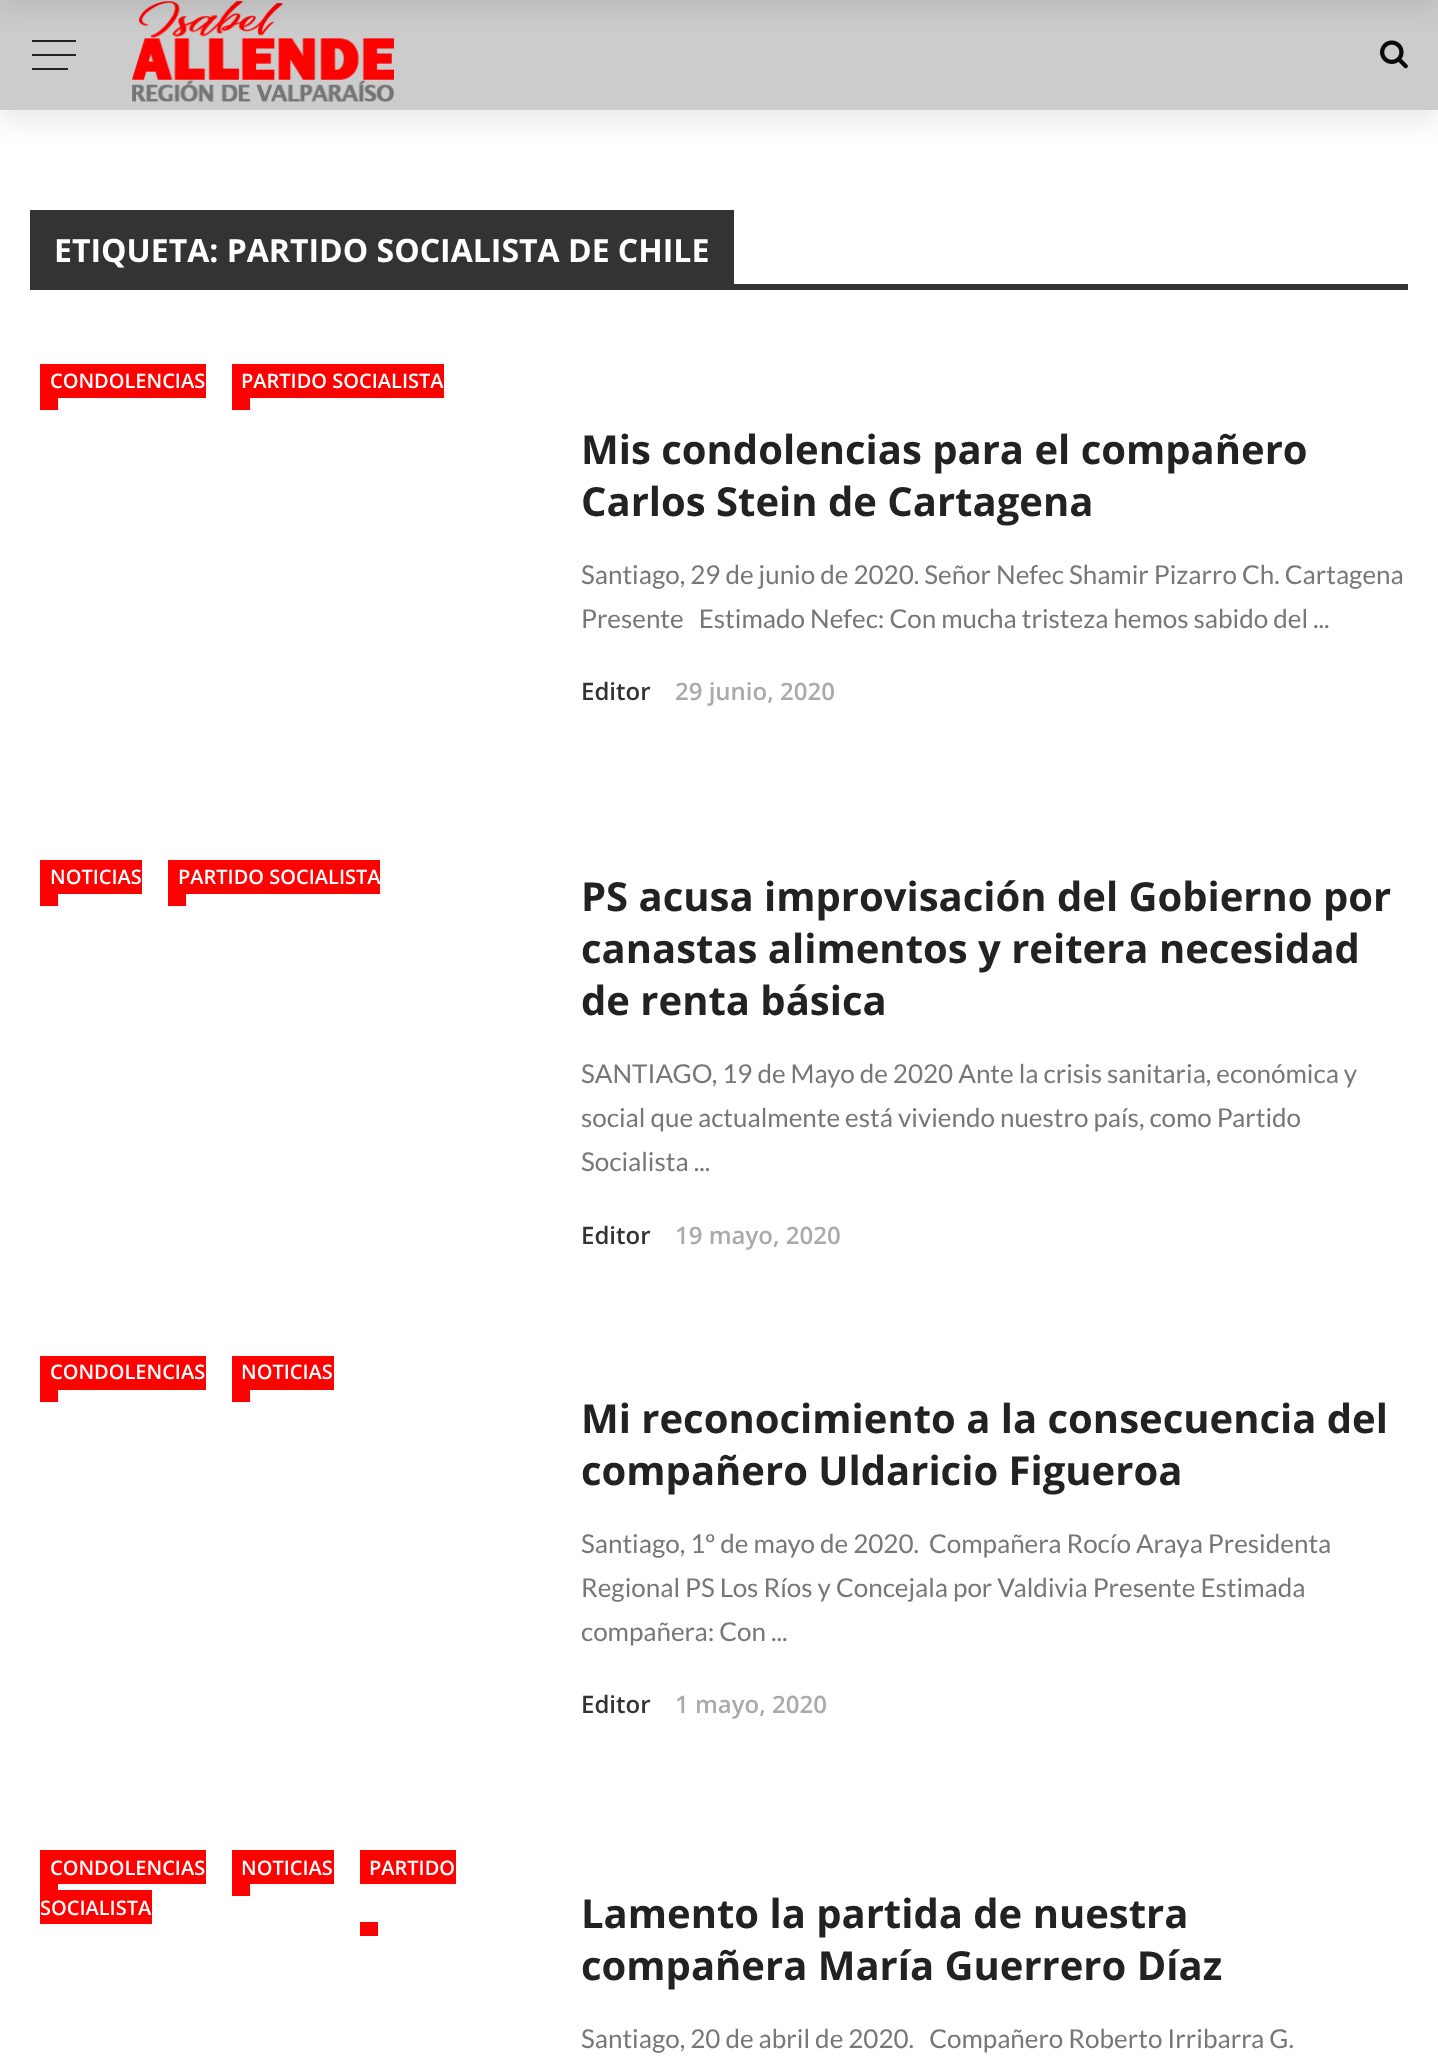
<svg xmlns="http://www.w3.org/2000/svg" width="1438" height="2058" viewBox="0 0 1438 2058">
  <style>
    .t1 { font: bold 32px Open Sans; fill: #fff; }
    .t2 { font: 600 20px Open Sans; fill: #fff; }
    .t3 { font: bold 40px Open Sans; fill: #222; }
    .t4 { font: 26px Lato; fill: #777; }
    .t5 { font: 600 24px Open Sans; fill: #333; }
    .t6 { font: 600 24px Open Sans; fill: #aaa; }
  </style>
  <rect width="100%" height="100%" fill="#fff"/>
  <rect x="0" y="10" width="1438" height="110" fill="#0000001a" filter="blur(15px)"/>
  <rect x="0" y="0" width="1438" height="110" fill="#ccc"/>
  <rect x="32" y="40" width="44" height="2" fill="#222"/>
  <rect x="32" y="54" width="44" height="2" fill="#222"/>
  <rect x="32" y="68" width="36" height="2" fill="#222"/>
  <image x="132" y="1" width="262" height="101" href="images/1.png"/>
  <image x="1380" y="40" width="28" height="29" href="images/2.png"/>
  <rect x="0" y="-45" width="1438" height="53" fill="#0000001a" filter="blur(15px)"/>
  <rect x="30" y="210" width="704" height="74" fill="#333"/>
  <text x="54" y="262" class="t1">ETIQUETA: PARTIDO SOCIALISTA DE CHILE</text>
  <rect x="30" y="284" width="1378" height="6" fill="#333"/>
  <rect x="40" y="364" width="166" height="34" fill="#f00"/>
  <text x="50" y="388" class="t2">CONDOLENCIAS</text>
  <rect x="40" y="398" width="18" height="12" fill="#f00"/>
  <rect x="232" y="364" width="212" height="34" fill="#f00"/>
  <text x="241" y="388" class="t2">PARTIDO SOCIALISTA</text>
  <rect x="232" y="398" width="18" height="12" fill="#f00"/>
  <text x="581" y="464" class="t3">Mis condolencias para el compañero</text>
  <text x="581" y="516" class="t3">Carlos Stein de Cartagena</text>
  <text x="581" y="584" class="t4">Santiago, 29 de junio de 2020. Señor Nefec Shamir Pizarro Ch. Cartagena</text>
  <text x="581" y="628" class="t4" xml:space="preserve">Presente   Estimado Nefec: Con mucha tristeza hemos sabido del ...</text>
  <text x="581" y="700" class="t5">Editor</text>
  <text x="675" y="700" class="t6">29 junio, 2020</text>
  <rect x="40" y="860" width="102" height="34" fill="#f00"/>
  <text x="50" y="884" class="t2">NOTICIAS</text>
  <rect x="40" y="894" width="18" height="12" fill="#f00"/>
  <rect x="168" y="860" width="212" height="34" fill="#f00"/>
  <text x="178" y="884" class="t2">PARTIDO SOCIALISTA</text>
  <rect x="168" y="894" width="18" height="12" fill="#f00"/>
  <text x="581" y="911" class="t3">PS acusa improvisación del Gobierno por</text>
  <text x="581" y="963" class="t3">canastas alimentos y reitera necesidad</text>
  <text x="581" y="1015" class="t3">de renta básica</text>
  <text x="581" y="1083" class="t4">SANTIAGO, 19 de Mayo de 2020 Ante la crisis sanitaria, económica y</text>
  <text x="581" y="1127" class="t4">social que actualmente está viviendo nuestro país, como Partido</text>
  <text x="581" y="1171" class="t4">Socialista ...</text>
  <text x="581" y="1244" class="t5">Editor</text>
  <text x="675" y="1244" class="t6">19 mayo, 2020</text>
  <rect x="40" y="1356" width="166" height="34" fill="#f00"/>
  <text x="50" y="1379" class="t2">CONDOLENCIAS</text>
  <rect x="40" y="1390" width="18" height="12" fill="#f00"/>
  <rect x="232" y="1356" width="102" height="34" fill="#f00"/>
  <text x="241" y="1379" class="t2">NOTICIAS</text>
  <rect x="232" y="1390" width="18" height="12" fill="#f00"/>
  <text x="581" y="1433" class="t3">Mi reconocimiento a la consecuencia del</text>
  <text x="581" y="1485" class="t3">compañero Uldaricio Figueroa</text>
  <text x="581" y="1553" class="t4" xml:space="preserve">Santiago, 1º de mayo de 2020.  Compañera Rocío Araya Presidenta</text>
  <text x="581" y="1597" class="t4">Regional PS Los Ríos y Concejala por Valdivia Presente Estimada</text>
  <text x="581" y="1641" class="t4">compañera: Con ...</text>
  <text x="581" y="1713" class="t5">Editor</text>
  <text x="675" y="1713" class="t6">1 mayo, 2020</text>
  <rect x="40" y="1850" width="166" height="34" fill="#f00"/>
  <text x="50" y="1875" class="t2">CONDOLENCIAS</text>
  <rect x="40" y="1884" width="18" height="6" fill="#f00"/>
  <rect x="232" y="1850" width="102" height="34" fill="#f00"/>
  <text x="241" y="1875" class="t2">NOTICIAS</text>
  <rect x="232" y="1884" width="18" height="12" fill="#f00"/>
  <rect x="360" y="1850" width="96" height="34" fill="#f00"/>
  <text x="369" y="1875" class="t2">PARTIDO</text>
  <rect x="360" y="1922" width="18" height="14" fill="#f00"/>
  <rect x="40" y="1890" width="112" height="34" fill="#f00"/>
  <text x="40" y="1915" class="t2">SOCIALISTA</text>
  <text x="581" y="1928" class="t3">Lamento la partida de nuestra</text>
  <text x="581" y="1980" class="t3">compañera María Guerrero Díaz</text>
  <text x="581" y="2048" class="t4" xml:space="preserve">Santiago, 20 de abril de 2020.   Compañero Roberto Irribarra G.</text>
</svg>
